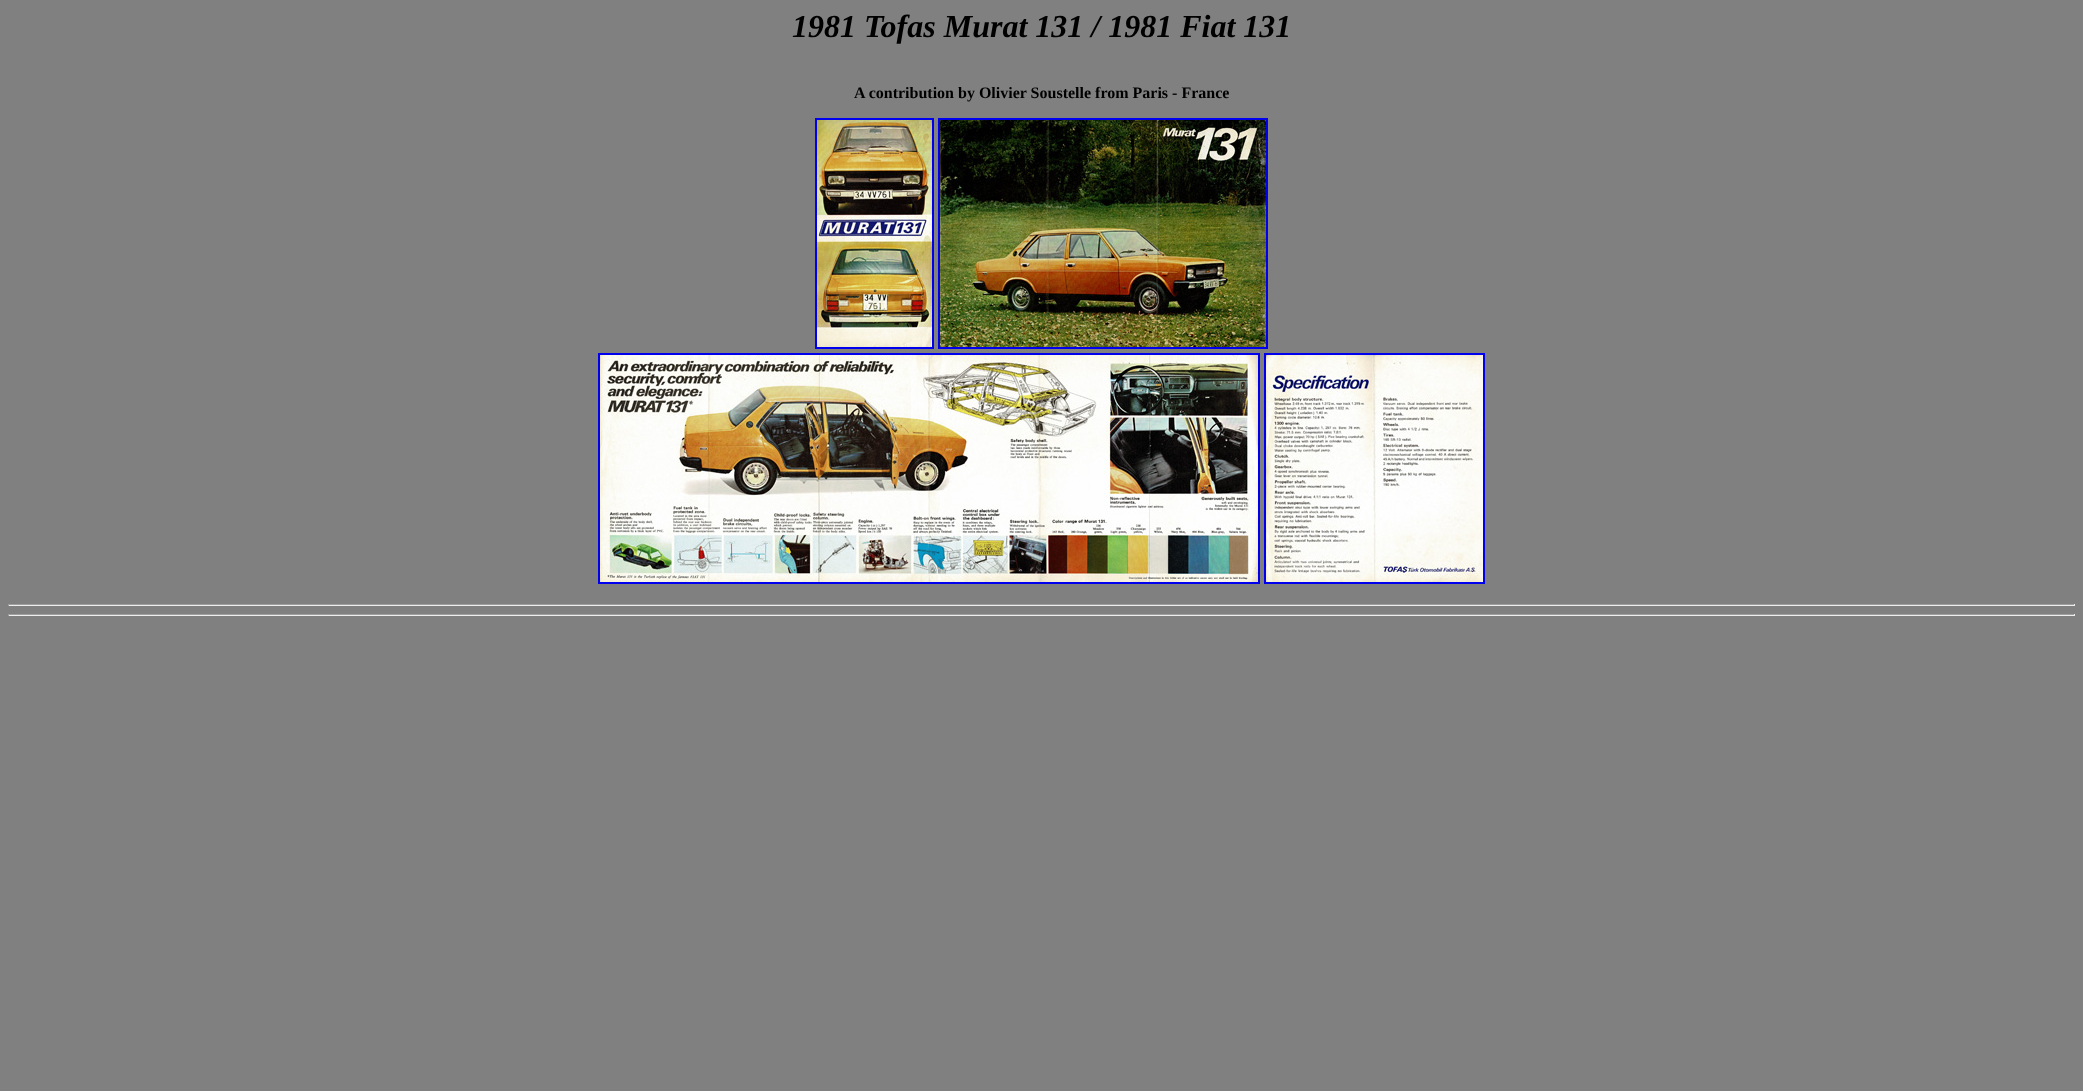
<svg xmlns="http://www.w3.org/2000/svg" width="2083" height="1091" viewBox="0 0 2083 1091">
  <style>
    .t1 { font: italic bold 32px Liberation Serif; fill: #000; }
    .t2 { font: bold 16px Liberation Serif; fill: #000; }
  </style>
  <rect width="100%" height="100%" fill="#808080"/>
  <text x="792" y="37" class="t1">1981 Tofas Murat 131 / 1981 Fiat 131</text>
  <text x="854" y="98" class="t2">A contribution by Olivier Soustelle from Paris - France</text>
  <rect x="816" y="119" width="117" height="229" fill="none" stroke="#00e" stroke-width="2"/>
  <rect x="939" y="119" width="328" height="229" fill="none" stroke="#00e" stroke-width="2"/>
  <image x="817" y="120" width="115" height="227" href="images/1.png"/>
  <image x="940" y="120" width="326" height="227" href="images/2.png"/>
  <rect x="599" y="354" width="660" height="229" fill="none" stroke="#00e" stroke-width="2"/>
  <rect x="1265" y="354" width="219" height="229" fill="none" stroke="#00e" stroke-width="2"/>
  <image x="600" y="355" width="658" height="227" href="images/3.png"/>
  <image x="1266" y="355" width="217" height="227" href="images/4.png"/>
  <rect x="8" y="604" width="2067" height="1" fill="#9f9f9f"/>
  <rect x="2074" y="604" width="1" height="2" fill="#eee"/>
  <rect x="8" y="605" width="2067" height="1" fill="#eee"/>
  <rect x="8" y="604" width="1" height="2" fill="#9f9f9f"/>
  <rect x="8" y="614" width="2067" height="1" fill="#9f9f9f"/>
  <rect x="2074" y="614" width="1" height="2" fill="#eee"/>
  <rect x="8" y="615" width="2067" height="1" fill="#eee"/>
  <rect x="8" y="614" width="1" height="2" fill="#9f9f9f"/>
</svg>
